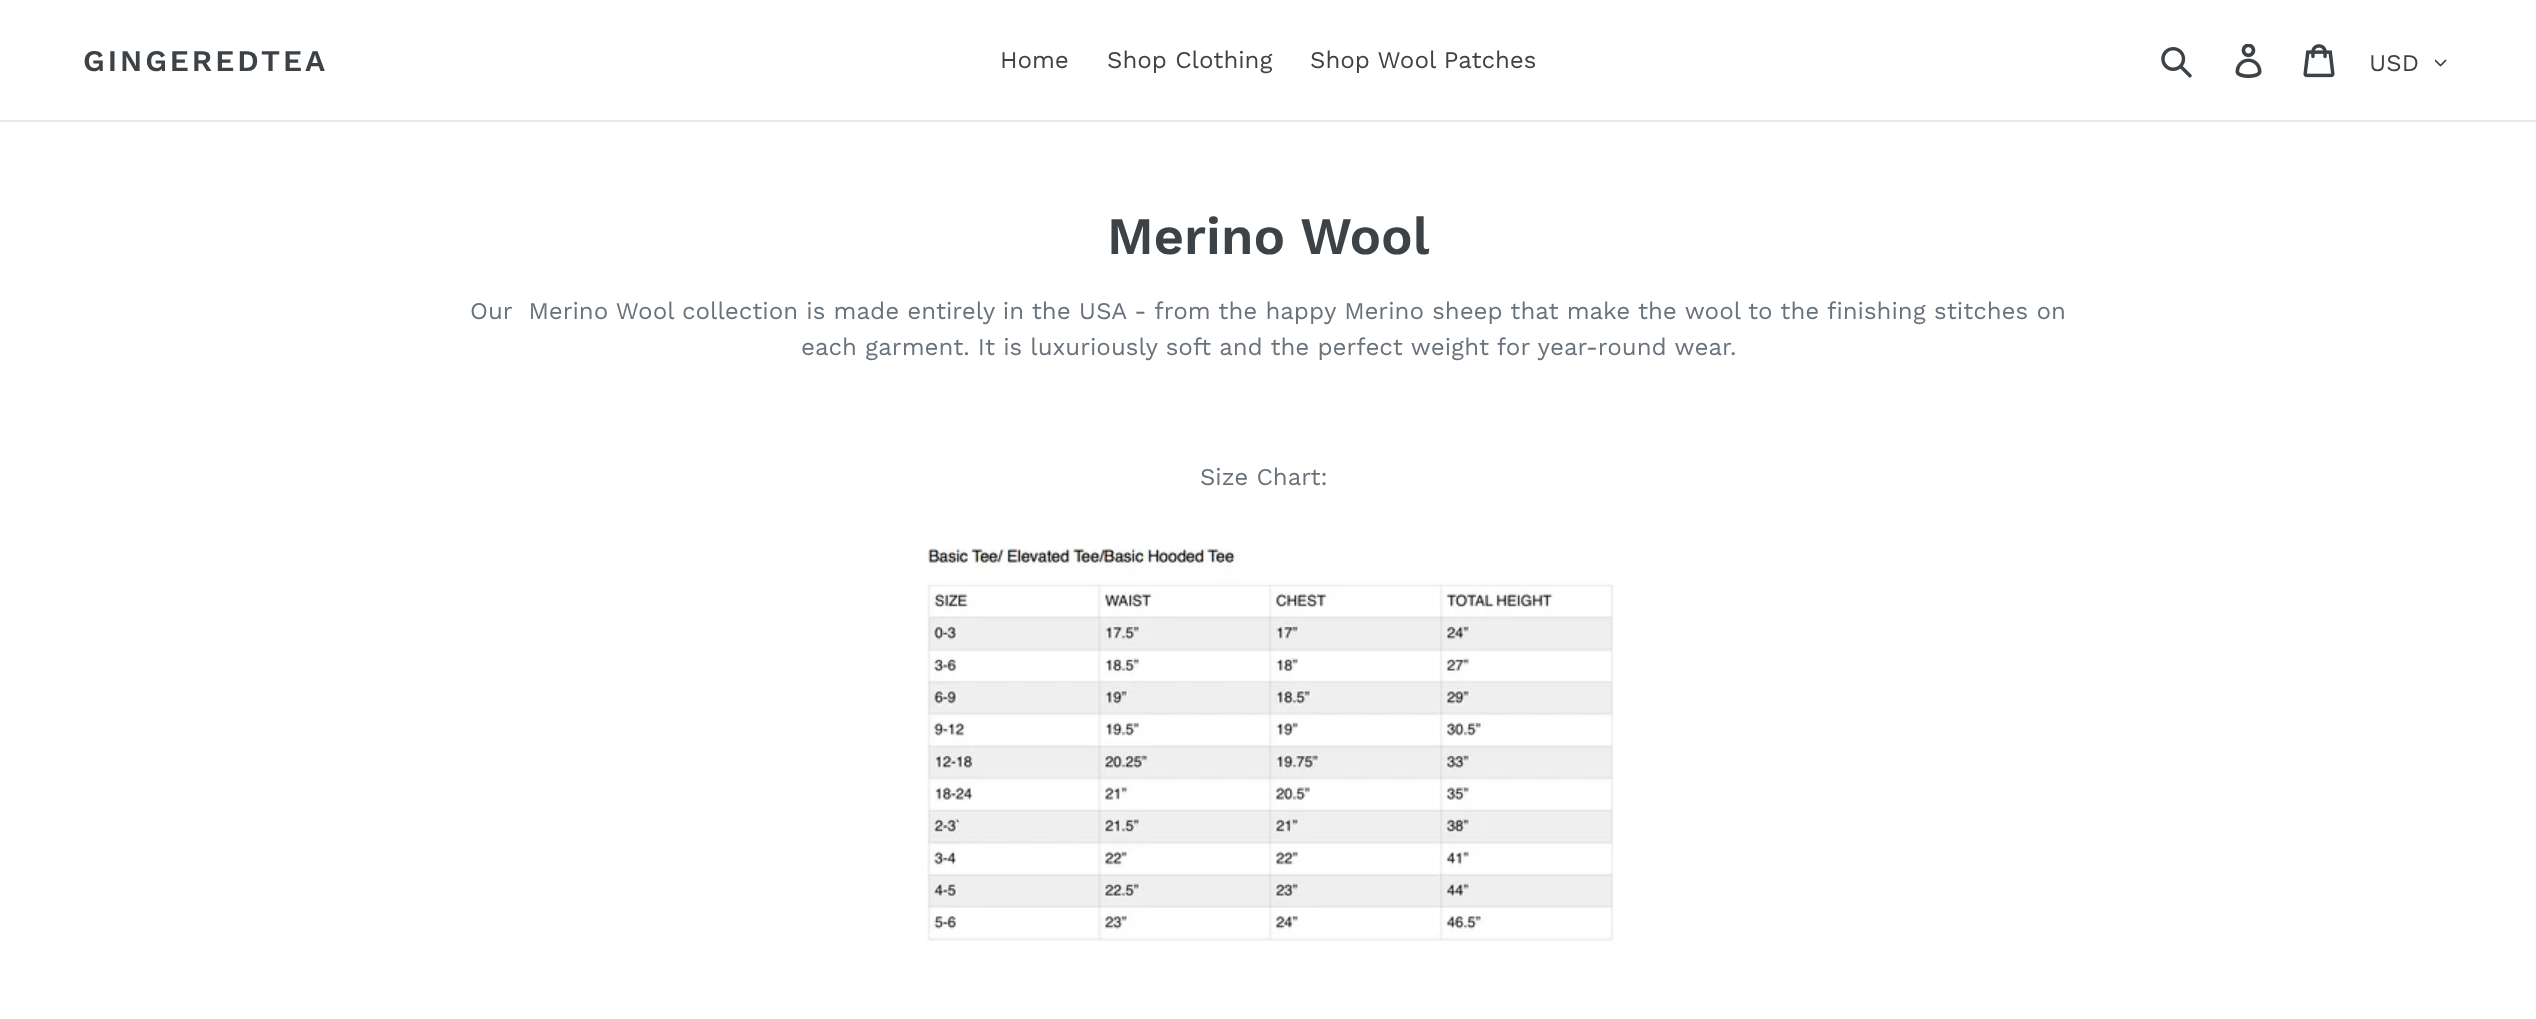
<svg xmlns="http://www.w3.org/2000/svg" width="2536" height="1019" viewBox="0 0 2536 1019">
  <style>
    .t1 { font: 600 30px Work Sans; letter-spacing: 3px; fill: #3d4246; }
    .t2 { font: 24px Work Sans; fill: #3d4246; }
    .t3 { font: 600 52.5px Work Sans; fill: #3d4246; }
    .t4 { font: 24px Work Sans; fill: #69727b; }
  </style>
  <rect width="100%" height="100%" fill="#fff"/>
  <rect x="0" y="120" width="2536" height="2" fill="#e8e9eb"/>
  <text x="83" y="71" class="t1">GINGEREDTEA</text>
  <text x="1000" y="68" class="t2">Home</text>
  <text x="1107" y="68" class="t2">Shop Clothing</text>
  <text x="1310" y="68" class="t2">Shop Wool Patches</text>
  <image x="2161" y="47" width="31" height="31" href="images/1.png"/>
  <image x="2235" y="44" width="27" height="34" href="images/2.png"/>
  <image x="2303" y="44" width="32" height="34" href="images/3.png"/>
  <text x="2369" y="71" class="t2">USD</text>
  <image x="2435" y="59" width="12" height="8" href="images/4.png"/>
  <text x="1107" y="254" class="t3">Merino Wool</text>
  <text x="470" y="319" class="t4" xml:space="preserve">Our  Merino Wool collection is made entirely in the USA - from the happy Merino sheep that make the wool to the finishing stitches on</text>
  <text x="801" y="355" class="t4">each garment. It is luxuriously soft and the perfect weight for year-round wear.</text>
  <text x="1200" y="485" class="t4">Size Chart:</text>
  <image x="926" y="548" width="688" height="394" href="images/5.png"/>
</svg>
